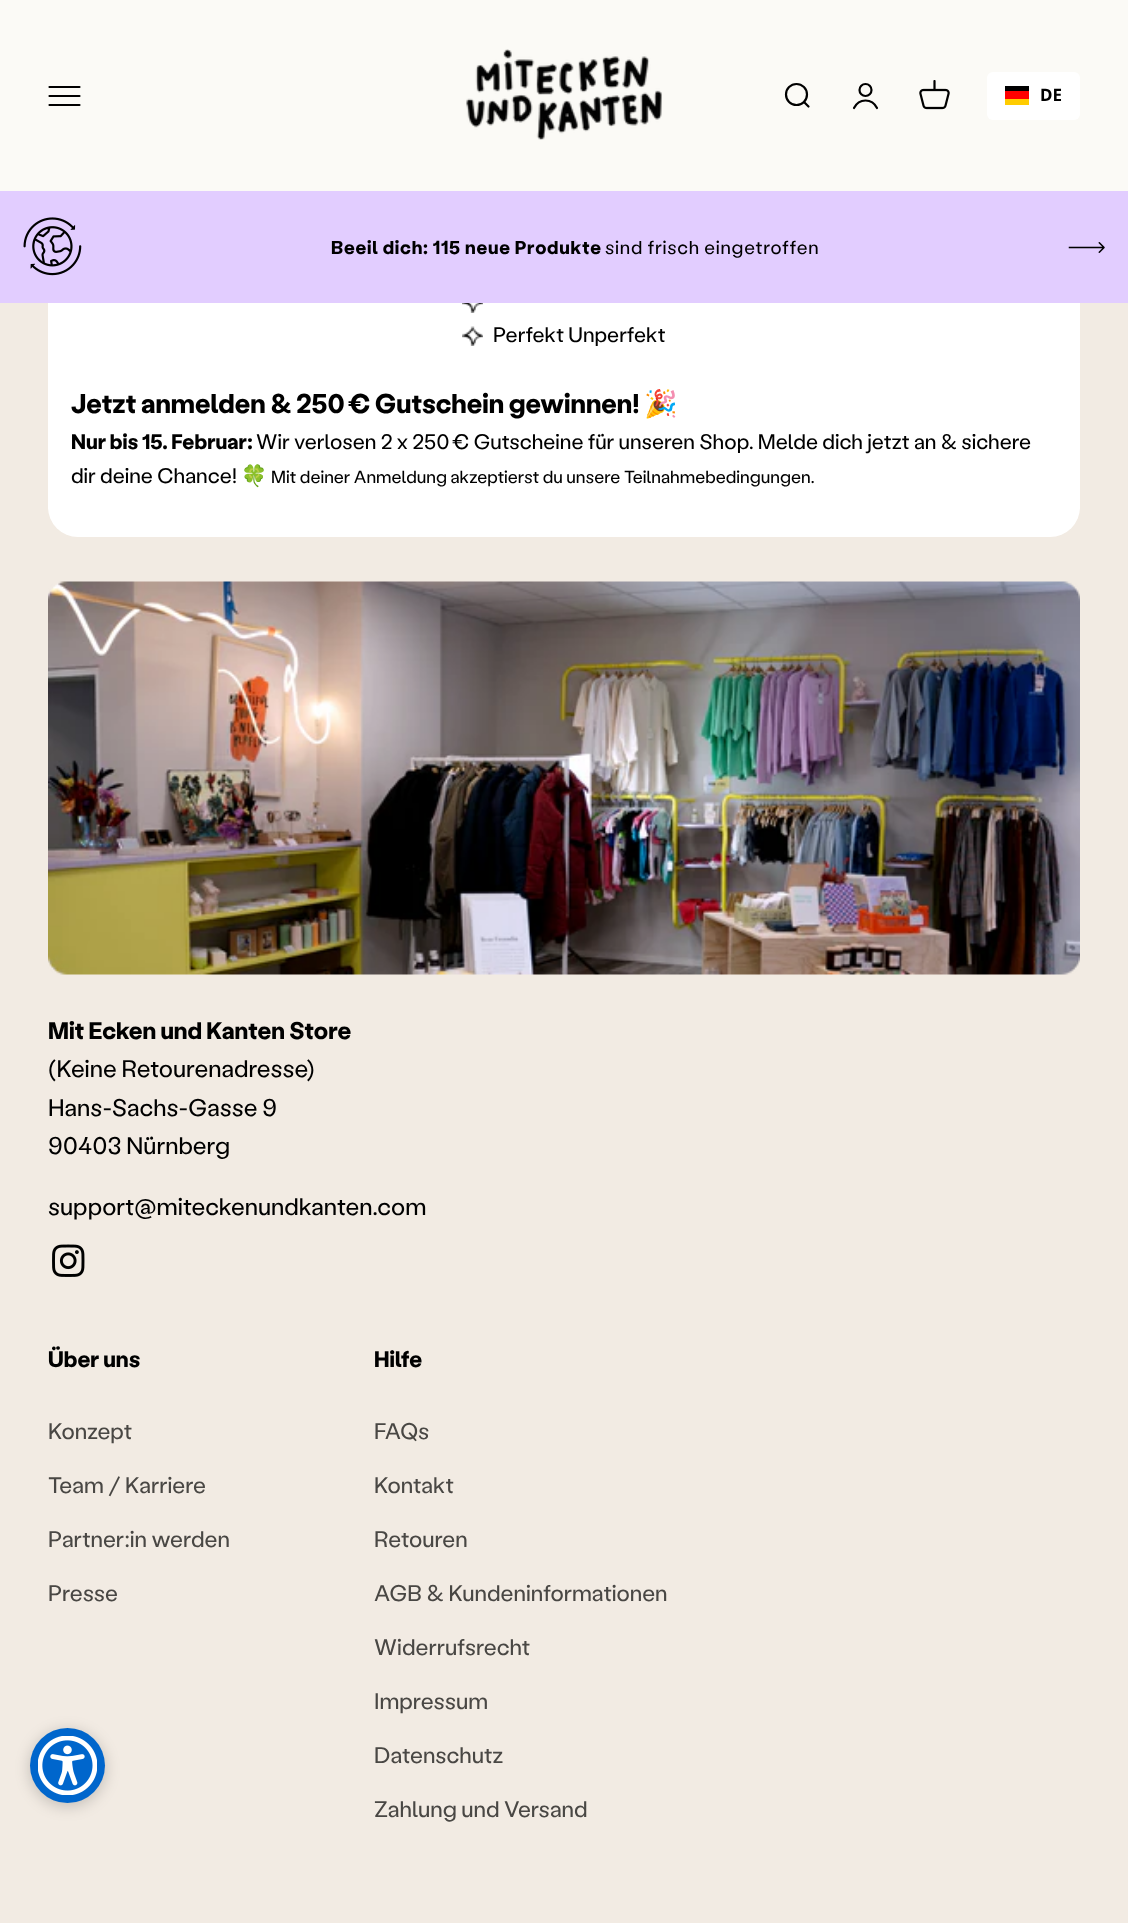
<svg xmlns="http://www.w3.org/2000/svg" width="1128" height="1923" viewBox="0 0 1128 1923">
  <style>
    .t1 { font: bold 17px Noto Sans; fill: #000; }
    .t2 { font: bold 18.75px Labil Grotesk; letter-spacing: 0.75px; fill: #000; }
    .t3 { font: 18.75px Labil Grotesk; letter-spacing: 0.75px; fill: #000; }
    .t4 { font: 21px Labil Grotesk; fill: #000; }
    .t5 { font: bold 27px Labil Grotesk; fill: #000; }
    .t6 { font: bold 27px Noto Color Emoji; fill: #000; }
    .t7 { font: bold 21px Labil Grotesk; fill: #000; }
    .t8 { font: 21px Noto Color Emoji; fill: #000; }
    .t9 { font: 17.5px Labil Grotesk; fill: #000; }
    .t10 { font: bold 24px Labil Grotesk; fill: #000; }
    .t11 { font: 24px Labil Grotesk; fill: #000; }
    .t12 { font: bold 22.5px Labil Grotesk; fill: #000; }
    .t13 { font: 22.5px Labil Grotesk; fill: #494744; }
  </style>
  <rect width="100%" height="100%" fill="#f2ebe3"/>
  <rect x="48" y="59" width="1032" height="478" rx="30" fill="#fff"/>
  <rect x="0" y="0" width="1128" height="191" fill="#fbfaf6"/>
  <path d="M49.5 87H79.5M49.5 96H79.5M49.5 105H79.5" fill="none" stroke="#000" stroke-width="2.2" stroke-linecap="round"/>
  <image x="466" y="49" width="196" height="91" href="images/1.png"/>
  <circle cx="796.5" cy="94.5" r="10.5" fill="none" stroke="#000" stroke-width="2.2"/>
  <path d="M804 102L808.5 106.5" fill="none" stroke="#000" stroke-width="2.2" stroke-linecap="round" stroke-linejoin="round"/>
  <circle cx="865.5" cy="90" r="6" fill="none" stroke="#000" stroke-width="2.2"/>
  <path d="M854 108C859 98 872 98 877 108" fill="none" stroke="#000" stroke-width="2.2" stroke-linecap="round"/>
  <image x="919" y="80" width="31" height="30" href="images/2.png"/>
  <rect x="987" y="72" width="93" height="48" rx="6" fill="#fff"/>
  <rect x="1005" y="99" width="24" height="6" fill="#fc0"/>
  <rect x="1005" y="86" width="24" height="5" fill="#000001"/>
  <rect x="1005" y="91" width="24" height="8" fill="#f00"/>
  <text x="1040" y="101" class="t1">DE</text>
  <rect x="0" y="191" width="1128" height="112" fill="#e2cdff"/>
  <image x="23" y="217" width="59" height="59" href="images/3.png"/>
  <text x="331" y="254" class="t2">Beeil dich: 115 neue Produkte</text>
  <text x="605" y="254" class="t3">sind frisch eingetroffen</text>
  <image x="1068" y="242" width="37" height="11" href="images/4.png"/>
  <image x="462" y="303" width="21" height="10" href="images/5.png"/>
  <image x="462" y="326" width="21" height="20" href="images/6.png"/>
  <text x="493" y="342" class="t4">Perfekt Unperfekt</text>
  <text x="71" y="413" class="t5">Jetzt anmelden &amp; 250 € Gutschein gewinnen!</text>
  <text x="644" y="413" class="t6">🎉</text>
  <text x="71" y="449" class="t7">Nur bis 15. Februar:</text>
  <text x="256" y="449" class="t4">Wir verlosen 2 x 250 € Gutscheine für unseren Shop. Melde dich jetzt an &amp; sichere</text>
  <text x="71" y="483" class="t4">dir deine Chance!</text>
  <text x="241" y="483" class="t8">🍀</text>
  <text x="271" y="483" class="t9">Mit deiner Anmeldung akzeptierst du unsere</text>
  <text x="624" y="483" class="t9">Teilnahmebedingungen.</text>
  <image x="48" y="581" width="1032" height="394" href="images/7.png"/>
  <text x="48" y="1039" class="t10">Mit Ecken und Kanten Store</text>
  <text x="48" y="1077" class="t11">(Keine Retourenadresse)</text>
  <text x="48" y="1116" class="t11">Hans-Sachs-Gasse 9</text>
  <text x="48" y="1154" class="t11">90403 Nürnberg</text>
  <text x="48" y="1215" class="t11">support@miteckenundkanten.com</text>
  <image x="52" y="1244" width="33" height="33" href="images/8.png"/>
  <text x="48" y="1367" class="t12">Über uns</text>
  <text x="48" y="1439" class="t13">Konzept</text>
  <text x="48" y="1493" class="t13">Team / Karriere</text>
  <text x="48" y="1547" class="t13">Partner:in werden</text>
  <text x="48" y="1601" class="t13">Presse</text>
  <text x="374" y="1367" class="t12">Hilfe</text>
  <text x="374" y="1439" class="t13">FAQs</text>
  <text x="374" y="1493" class="t13">Kontakt</text>
  <text x="374" y="1547" class="t13">Retouren</text>
  <text x="374" y="1601" class="t13">AGB &amp; Kundeninformationen</text>
  <text x="374" y="1655" class="t13">Widerrufsrecht</text>
  <text x="374" y="1709" class="t13">Impressum</text>
  <text x="374" y="1763" class="t13">Datenschutz</text>
  <text x="374" y="1817" class="t13">Zahlung und Versand</text>
  <rect x="30" y="1731" width="75" height="75" rx="37.5" fill="#00000033" filter="blur(7.5px)"/>
  <circle cx="67.5" cy="1765.5" r="37.5" fill="#06c"/>
  <image x="38" y="1736" width="59" height="59" href="images/9.png"/>
</svg>
